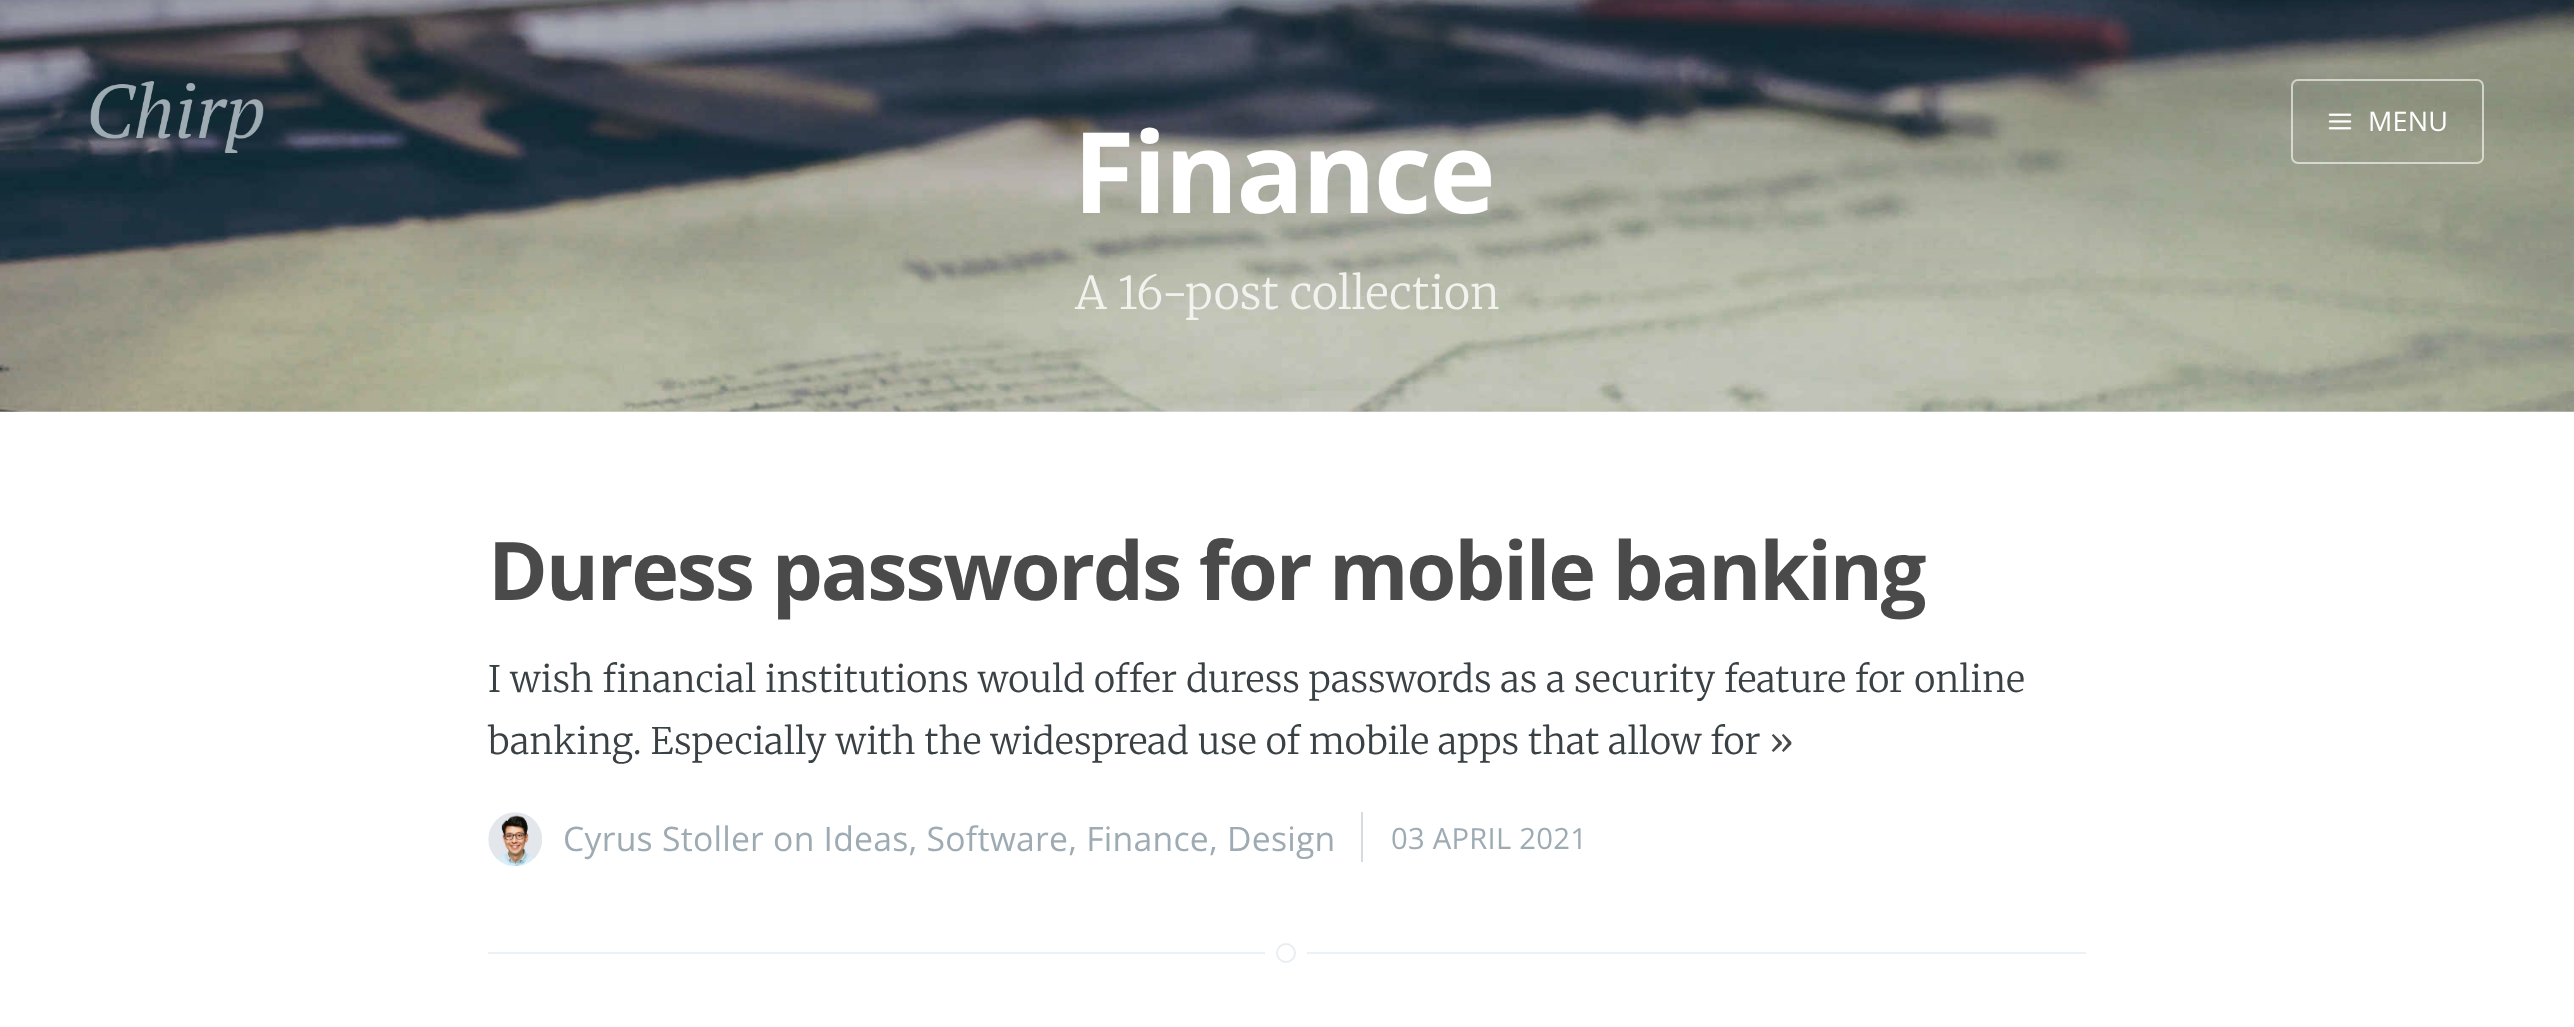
<svg xmlns="http://www.w3.org/2000/svg" width="2574" height="1027" viewBox="0 0 2574 1027">
  <style>
    .t1 { font: 27px Open Sans; letter-spacing: 0.23px; fill: #fff; }
    .t2 { font: bold 112.5px Open Sans; letter-spacing: -2.25px; fill: #fff; }
    .t3 { font: 300 45px Merriweather; letter-spacing: 0.23px; fill: #f2f2ef; }
    .t4 { font: bold 81px Open Sans; letter-spacing: -2.25px; fill: #4a4a4a; }
    .t5 { font: 300 36.45px Merriweather; letter-spacing: 0.23px; fill: #3a4145; }
    .t6 { font: 300 36.45px Merriweather; letter-spacing: 0.23px; fill: #4a4a4a; }
    .t7 { font: 33.75px Open Sans; letter-spacing: 0.23px; fill: #9eabb3; }
    .t8 { font: 29.25px Open Sans; letter-spacing: 0.23px; fill: #9eabb3; }
  </style>
  <rect width="100%" height="100%" fill="#fff"/>
  <image x="0" y="0" width="2574" height="412" href="images/1.png"/>
  <image x="90" y="81" width="174" height="72" href="images/2.png"/>
  <rect x="2292" y="80" width="191" height="83" rx="6" fill="none" stroke="#ffffff99" stroke-width="2"/>
  <image x="2328" y="113" width="24" height="17" href="images/3.png"/>
  <text x="2368" y="131" class="t1">MENU</text>
  <text x="1073" y="213" class="t2">Finance</text>
  <text x="1075" y="309" class="t3">A 16-post collection</text>
  <rect x="488" y="952" width="1598" height="2" fill="#ebf2f6"/>
  <text x="488" y="600" class="t4">Duress passwords for mobile banking</text>
  <text x="488" y="692" class="t5">I wish financial institutions would offer duress passwords as a security feature for online</text>
  <text x="488" y="754" class="t5">banking. Especially with the widespread use of mobile apps that allow for</text>
  <text x="1769" y="754" class="t6">»</text>
  <image x="488" y="812" width="54" height="54" href="images/4.png"/>
  <text x="563" y="851" class="t7">Cyrus Stoller on Ideas, Software, Finance, Design</text>
  <rect x="1361" y="812" width="2" height="50" fill="#d5dbde"/>
  <text x="1391" y="849" class="t8">03 APRIL 2021</text>
  <circle cx="1286" cy="953" r="15.5" fill="none" stroke="#fff" stroke-width="11"/>
  <circle cx="1286" cy="953" r="9" fill="#fff" stroke="#e7eef2" stroke-width="2"/>
</svg>
